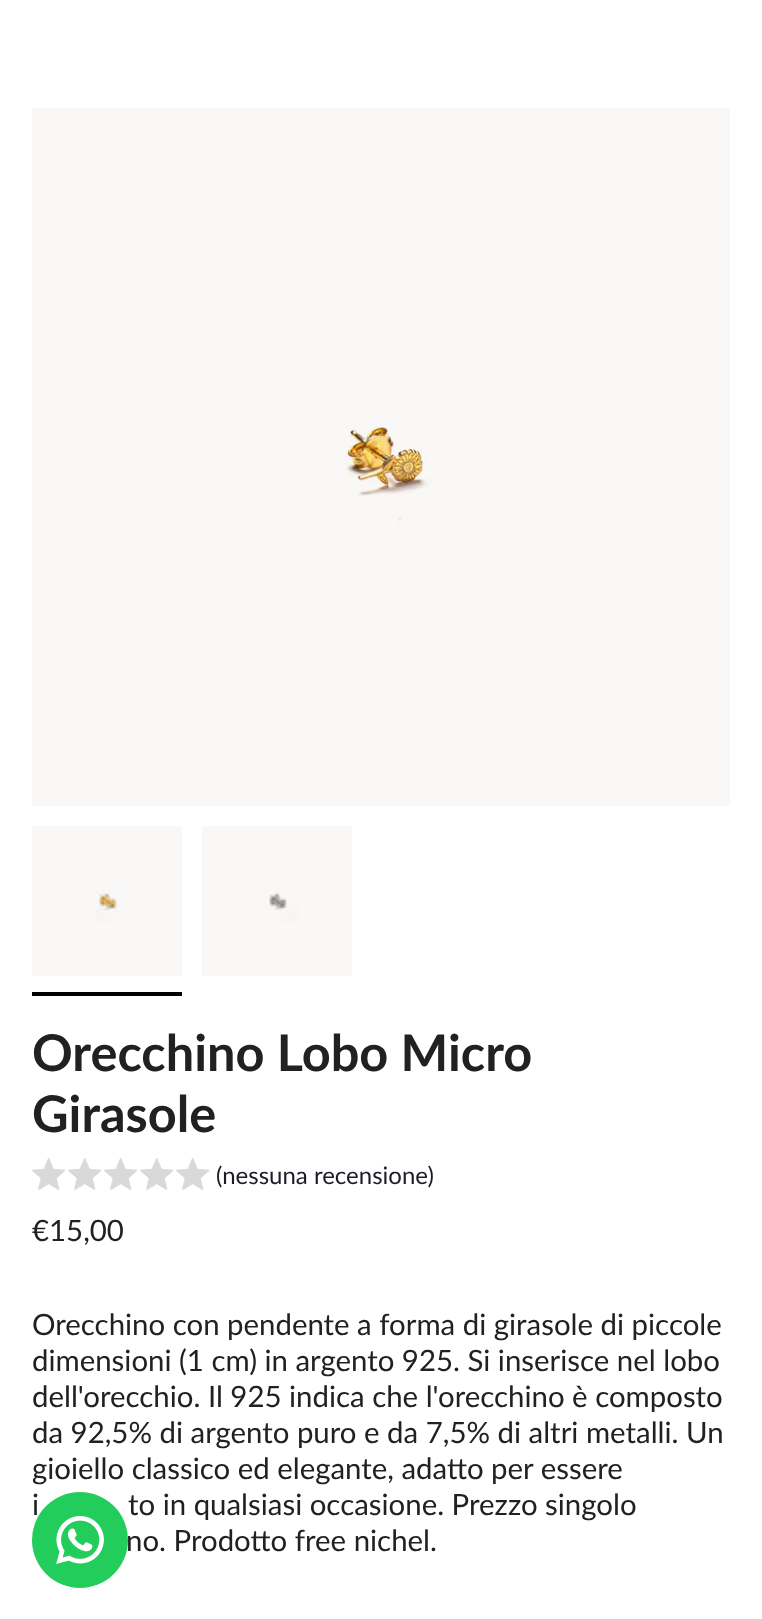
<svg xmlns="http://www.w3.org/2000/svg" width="762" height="1619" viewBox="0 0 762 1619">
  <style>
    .t1 { font: bold 50.5px Lato; fill: #212121; }
    .t2 { font: 24px Lato; fill: #1c1c28; }
    .t3 { font: 29.4px Lato; fill: #212121; }
  </style>
  <rect width="100%" height="100%" fill="#fff"/>
  <image x="32" y="108" width="698" height="698" href="images/1.png"/>
  <image x="32" y="826" width="150" height="150" href="images/2.png"/>
  <rect x="32" y="992" width="150" height="4" fill="#000"/>
  <image x="202" y="826" width="150" height="150" href="images/3.png"/>
  <text x="32" y="1071" class="t1">Orecchino Lobo Micro</text>
  <text x="32" y="1132" class="t1">Girasole</text>
  <image x="32" y="1158" width="34" height="32" href="images/4.png"/>
  <image x="68" y="1158" width="34" height="32" href="images/4.png"/>
  <image x="104" y="1158" width="34" height="32" href="images/4.png"/>
  <image x="140" y="1158" width="34" height="32" href="images/4.png"/>
  <image x="176" y="1158" width="34" height="32" href="images/4.png"/>
  <text x="216" y="1184" class="t2">(nessuna recensione)</text>
  <text x="32" y="1241" class="t3">€15,00</text>
  <text x="32" y="1335" class="t3">Orecchino con pendente a forma di girasole di piccole</text>
  <text x="32" y="1371" class="t3">dimensioni (1 cm) in argento 925. Si inserisce nel lobo</text>
  <text x="32" y="1407" class="t3">dell'orecchio. Il 925 indica che l'orecchino è composto</text>
  <text x="32" y="1443" class="t3">da 92,5% di argento puro e da 7,5% di altri metalli. Un</text>
  <text x="32" y="1479" class="t3">gioiello classico ed elegante, adatto per essere</text>
  <text x="32" y="1515" class="t3">i</text>
  <text x="128" y="1515" class="t3">to in qualsiasi occasione. Prezzo singolo</text>
  <text x="126" y="1551" class="t3">no. Prodotto free nichel.</text>
  <circle cx="80" cy="1540" r="48" fill="#22cd5b"/>
  <image x="56" y="1516" width="48" height="48" href="images/5.png"/>
</svg>
